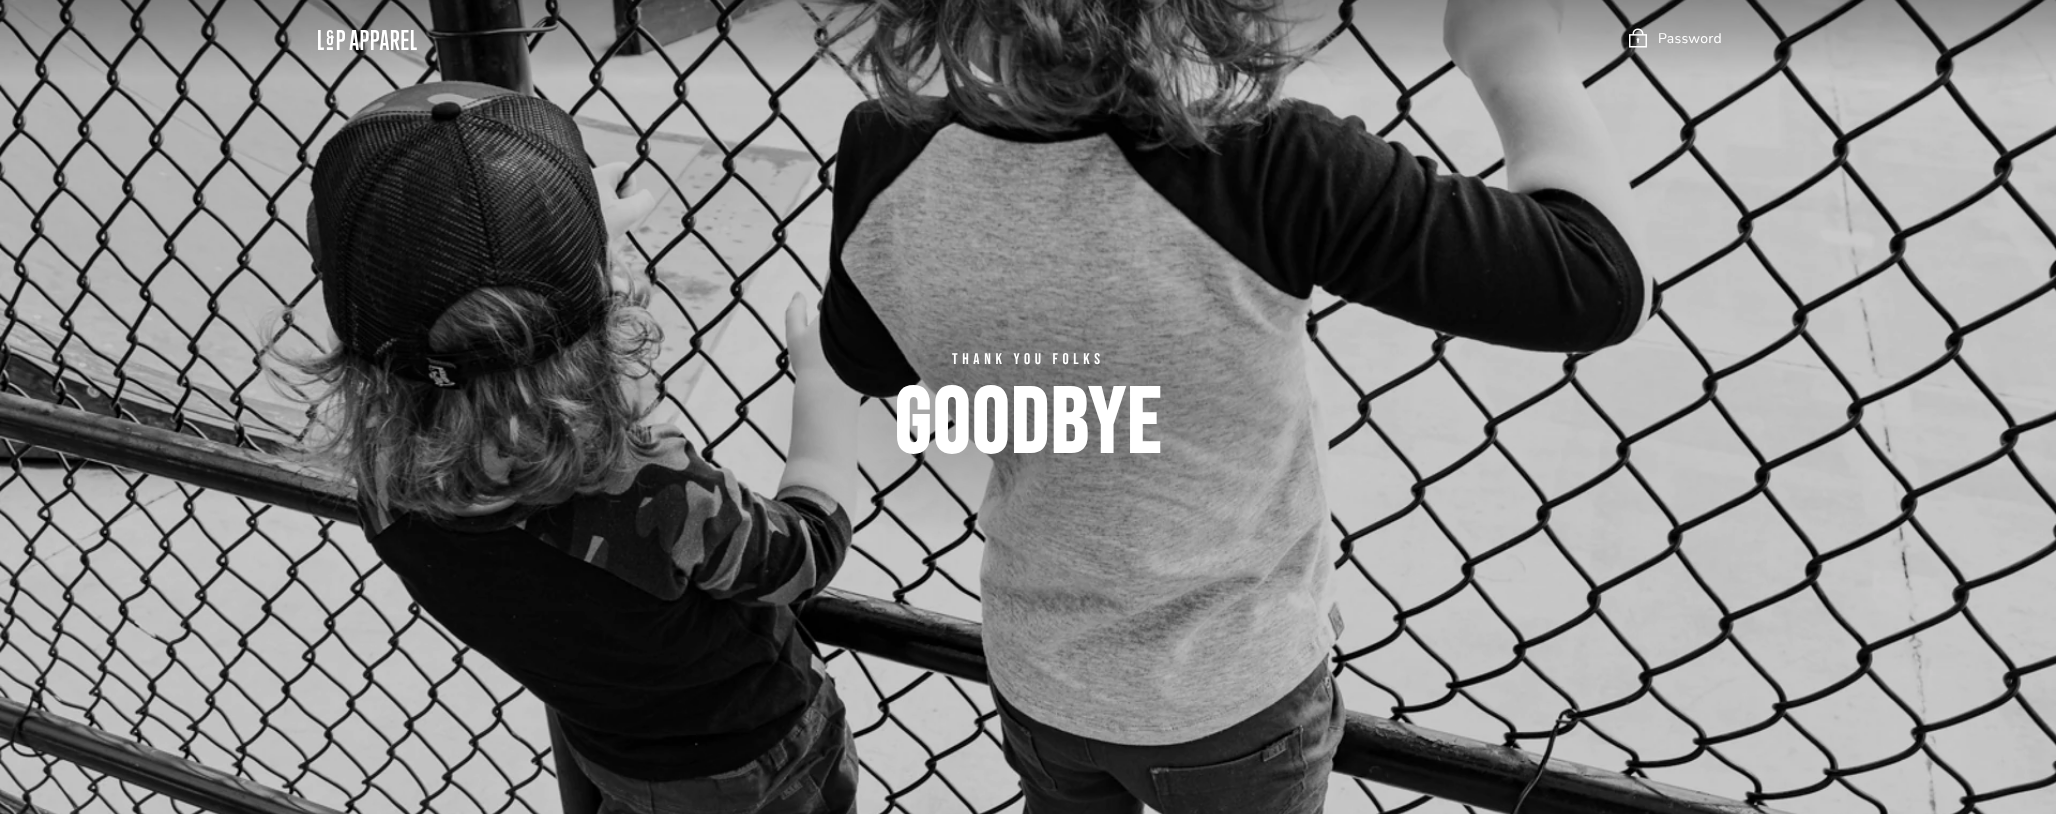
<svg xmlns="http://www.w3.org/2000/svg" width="2056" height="814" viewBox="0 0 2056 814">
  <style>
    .t1 { font: 14px Nunito Sans; letter-spacing: 0.25px; fill: #fff; }
    .t2 { font: 15.5px Bebas Neue; letter-spacing: 4.6px; fill: #fff; }
    .t3 { font: bold 92px Bebas Neue; letter-spacing: 2.25px; fill: #fff; }
  </style>
  <rect width="100%" height="100%" fill="#fff"/>
  <image x="0" y="0" width="2056" height="814" href="images/3.png"/>
  <image x="318" y="30" width="99" height="20" href="images/1.png"/>
  <image x="1629" y="28" width="18" height="20" href="images/2.png"/>
  <text x="1658" y="43" class="t1">Password</text>
  <text x="952" y="364" class="t2">THANK YOU FOLKS</text>
  <text x="894" y="453" class="t3">GOODBYE</text>
</svg>
